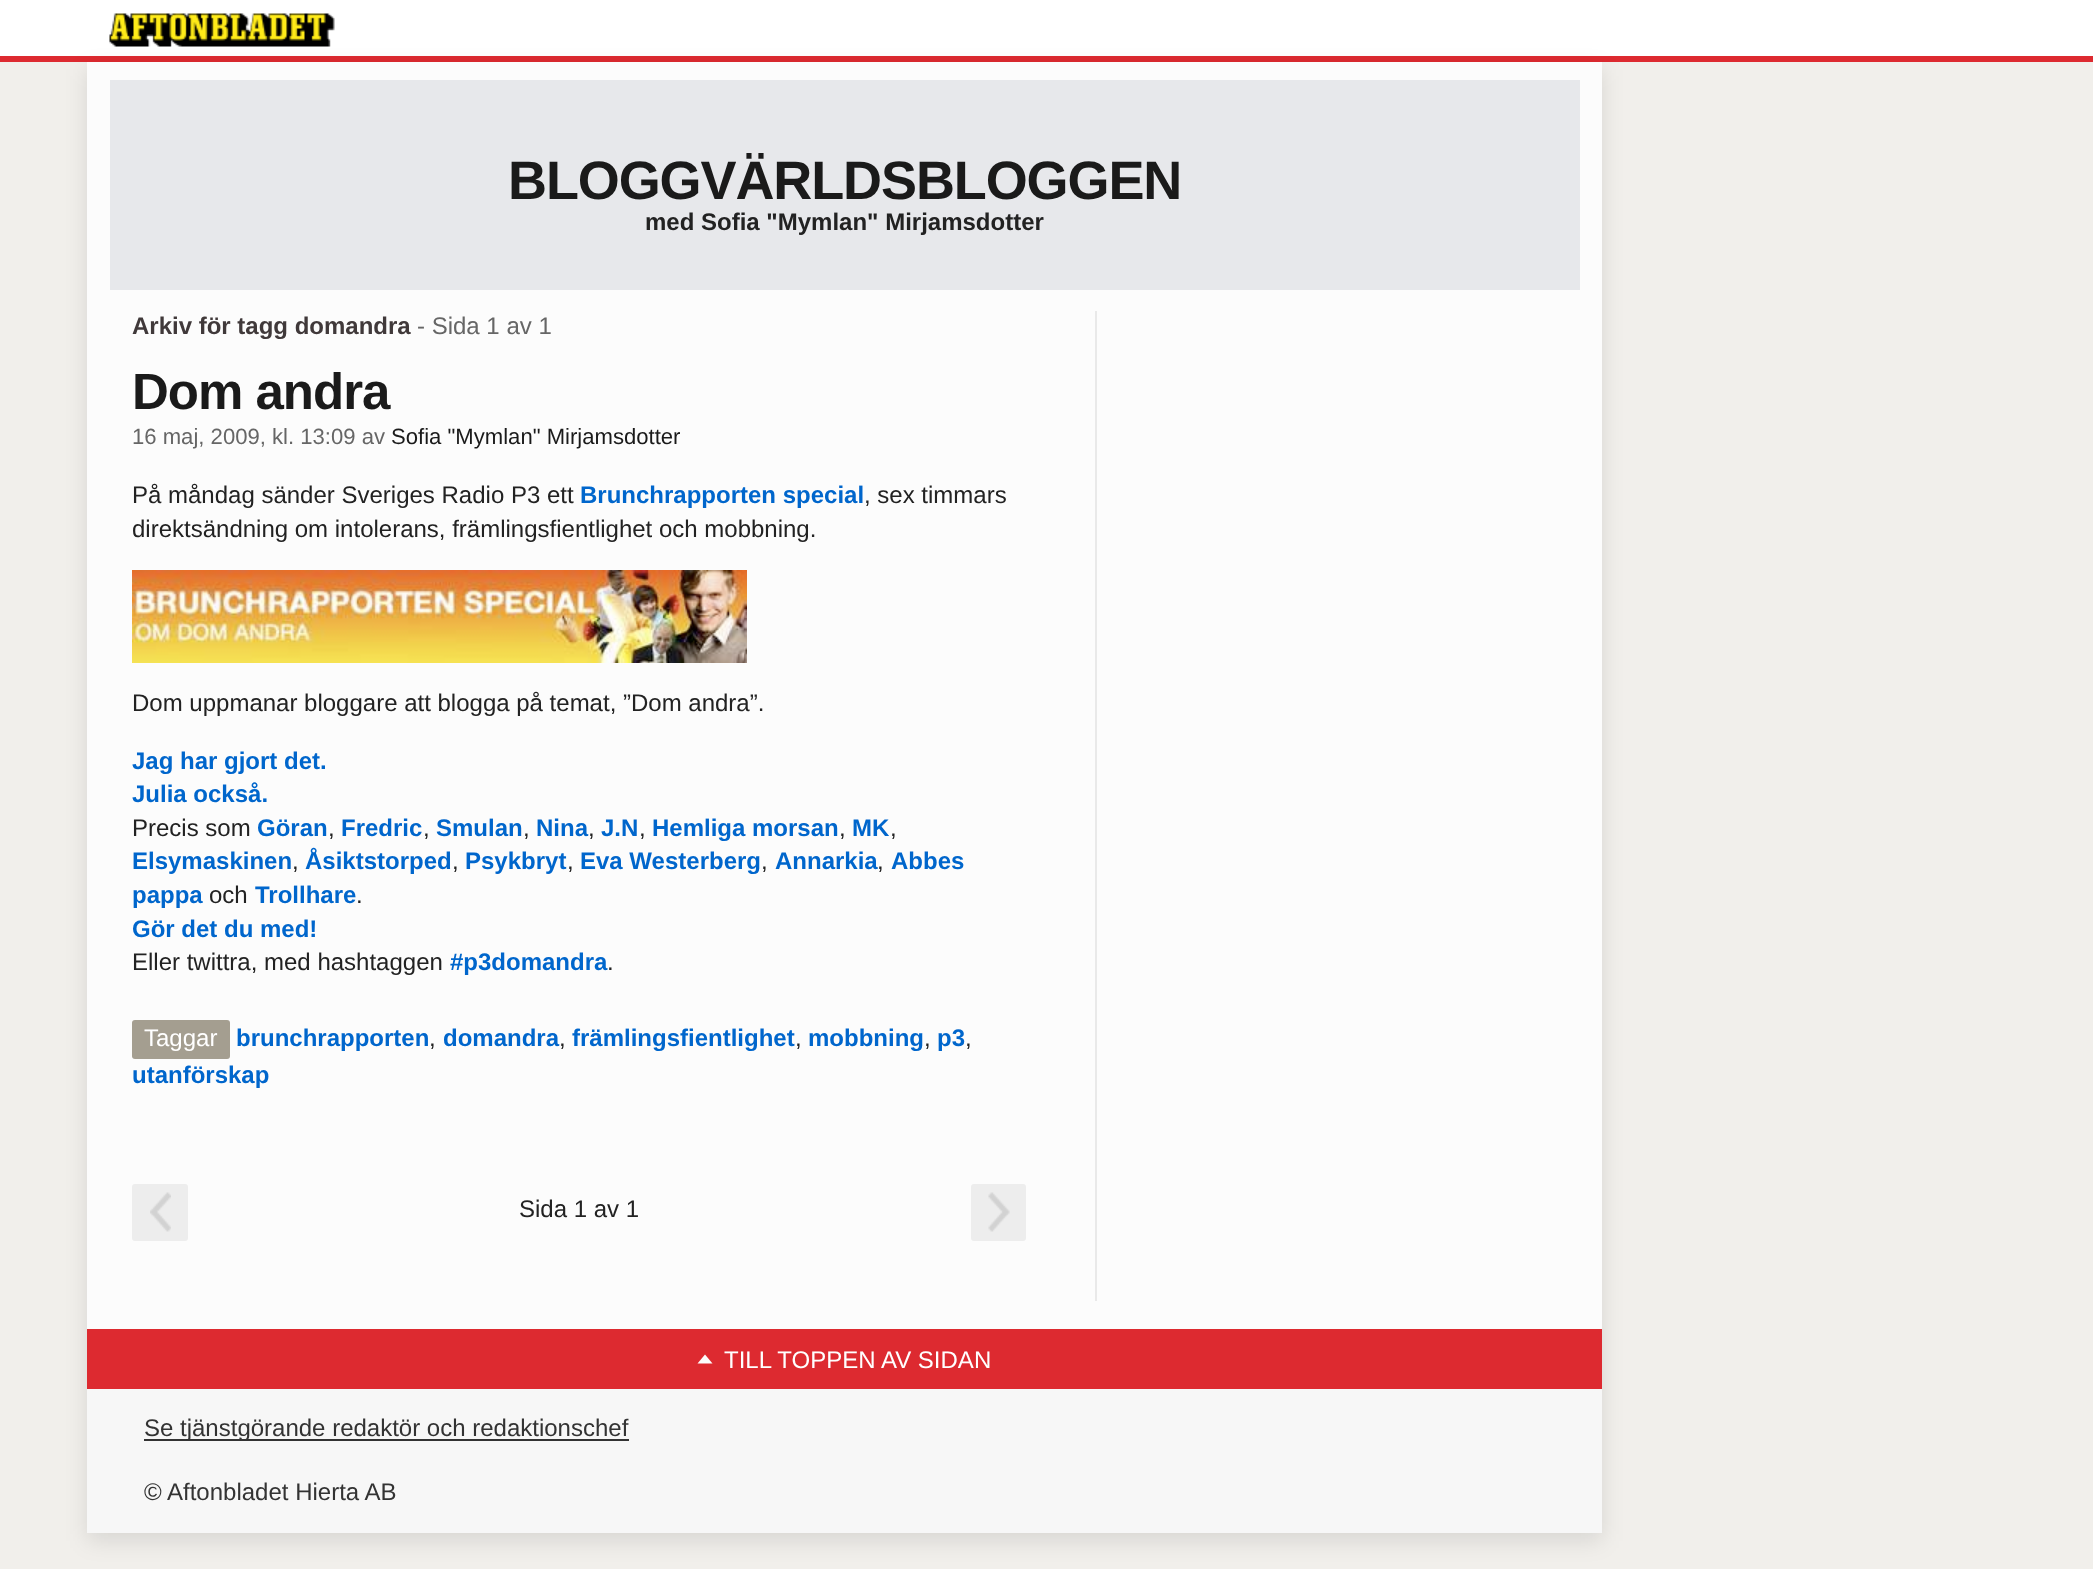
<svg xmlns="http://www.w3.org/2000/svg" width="2093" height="1569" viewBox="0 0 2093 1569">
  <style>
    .t1 { font: bold 54px Liberation Sans; letter-spacing: -1.1px; fill: #1a1a1a; }
    .t2 { font: bold 24px Liberation Sans; fill: #222; }
    .t3 { font: bold 24px Liberation Sans; fill: #40393a; }
    .t4 { font: 24px Liberation Sans; fill: #666; }
    .t5 { font: bold 51px Liberation Sans; letter-spacing: -1px; fill: #1a1a1a; }
    .t6 { font: 22.1px Liberation Sans; fill: #666; }
    .t7 { font: 22.1px Liberation Sans; fill: #1a1a1a; }
    .t8 { font: 24px Liberation Sans; fill: #222; }
    .t9 { font: bold 24px Liberation Sans; fill: #06c; }
    .t10 { font: 24px Liberation Sans; fill: #fff; }
    .t11 { font: 24px Liberation Sans; fill: #333; }
  </style>
  <rect width="100%" height="100%" fill="#f1efeb"/>
  <rect x="0" y="0" width="2093" height="56" fill="#fff"/>
  <rect x="0" y="56" width="2093" height="6" fill="#dd2a30"/>
  <image x="109" y="13" width="226" height="34" href="images/1.png"/>
  <rect x="87" y="69" width="1515" height="1472" fill="#0000001a" filter="blur(11px)"/>
  <rect x="87" y="62" width="1515" height="1267" fill="#fcfcfc"/>
  <rect x="110" y="80" width="1470" height="210" fill="#e7e8eb"/>
  <text x="508" y="199" class="t1">BLOGGVÄRLDSBLOGGEN</text>
  <text x="645" y="230" class="t2">med Sofia "Mymlan" Mirjamsdotter</text>
  <rect x="1095" y="311" width="2" height="990" fill="#e9e9e9"/>
  <text x="132" y="334" class="t3">Arkiv för tagg domandra</text>
  <text x="417" y="334" class="t4">- Sida 1 av 1</text>
  <text x="132" y="409" class="t5">Dom andra</text>
  <text x="132" y="444" class="t6">16 maj, 2009, kl. 13:09 av</text>
  <text x="391" y="444" class="t7">Sofia "Mymlan" Mirjamsdotter</text>
  <text x="132" y="503" class="t8">På måndag sänder Sveriges Radio P3 ett</text>
  <text x="580" y="503" class="t9">Brunchrapporten special</text>
  <text x="864" y="503" class="t8">, sex timmars</text>
  <text x="132" y="537" class="t8">direktsändning om intolerans, främlingsfientlighet och mobbning.</text>
  <image x="132" y="570" width="615" height="93" href="images/2.png"/>
  <text x="132" y="711" class="t8">Dom uppmanar bloggare att blogga på temat, ”Dom andra”.</text>
  <text x="132" y="769" class="t9">Jag har gjort det.</text>
  <text x="132" y="802" class="t9">Julia också.</text>
  <text x="132" y="836" class="t8">Precis som</text>
  <text x="257" y="836" class="t9">Göran</text>
  <text x="328" y="836" class="t8">,</text>
  <text x="341" y="836" class="t9">Fredric</text>
  <text x="423" y="836" class="t8">,</text>
  <text x="436" y="836" class="t9">Smulan</text>
  <text x="523" y="836" class="t8">,</text>
  <text x="536" y="836" class="t9">Nina</text>
  <text x="588" y="836" class="t8">,</text>
  <text x="601" y="836" class="t9">J.N</text>
  <text x="639" y="836" class="t8">,</text>
  <text x="652" y="836" class="t9">Hemliga morsan</text>
  <text x="839" y="836" class="t8">,</text>
  <text x="852" y="836" class="t9">MK</text>
  <text x="890" y="836" class="t8">,</text>
  <text x="132" y="869" class="t9">Elsymaskinen</text>
  <text x="292" y="869" class="t8">,</text>
  <text x="305" y="869" class="t9">Åsiktstorped</text>
  <text x="452" y="869" class="t8">,</text>
  <text x="465" y="869" class="t9">Psykbryt</text>
  <text x="567" y="869" class="t8">,</text>
  <text x="580" y="869" class="t9">Eva Westerberg</text>
  <text x="761" y="869" class="t8">,</text>
  <text x="775" y="869" class="t9">Annarkia</text>
  <text x="877" y="869" class="t8">,</text>
  <text x="891" y="869" class="t9">Abbes</text>
  <text x="132" y="903" class="t9">pappa</text>
  <text x="209" y="903" class="t8">och</text>
  <text x="255" y="903" class="t9">Trollhare</text>
  <text x="356" y="903" class="t8">.</text>
  <text x="132" y="937" class="t9">Gör det du med!</text>
  <text x="132" y="970" class="t8">Eller twittra, med hashtaggen</text>
  <text x="450" y="970" class="t9">#p3domandra</text>
  <text x="607" y="970" class="t8">.</text>
  <rect x="132" y="1020" width="98" height="39" rx="3" fill="#a49e90"/>
  <text x="144" y="1046" class="t10">Taggar</text>
  <text x="236" y="1046" class="t9">brunchrapporten</text>
  <text x="429" y="1046" class="t8">,</text>
  <text x="443" y="1046" class="t9">domandra</text>
  <text x="559" y="1046" class="t8">,</text>
  <text x="572" y="1046" class="t9">främlingsfientlighet</text>
  <text x="795" y="1046" class="t8">,</text>
  <text x="808" y="1046" class="t9">mobbning</text>
  <text x="924" y="1046" class="t8">,</text>
  <text x="937" y="1046" class="t9">p3</text>
  <text x="965" y="1046" class="t8">,</text>
  <text x="132" y="1083" class="t9">utanförskap</text>
  <rect x="132" y="1184" width="56" height="57" rx="3" fill="#ededed"/>
  <image x="150" y="1192" width="21" height="40" href="images/3.png"/>
  <text x="519" y="1217" class="t8">Sida 1 av 1</text>
  <rect x="971" y="1184" width="55" height="57" rx="3" fill="#ededed"/>
  <image x="988" y="1192" width="22" height="40" href="images/4.png"/>
  <rect x="87" y="1329" width="1515" height="60" fill="#dd2a30"/>
  <path d="M712.5 1363.5H697.5L705 1354.5Z" fill="#fcfcfc"/>
  <text x="724" y="1368" class="t10">TILL TOPPEN AV SIDAN</text>
  <rect x="87" y="1389" width="1515" height="144" fill="#f7f7f7"/>
  <rect x="144" y="1439" width="485" height="2" fill="#333"/>
  <text x="144" y="1436" class="t11">Se tjänstgörande redaktör och redaktionschef</text>
  <text x="144" y="1500" class="t11">© Aftonbladet Hierta AB</text>
</svg>
